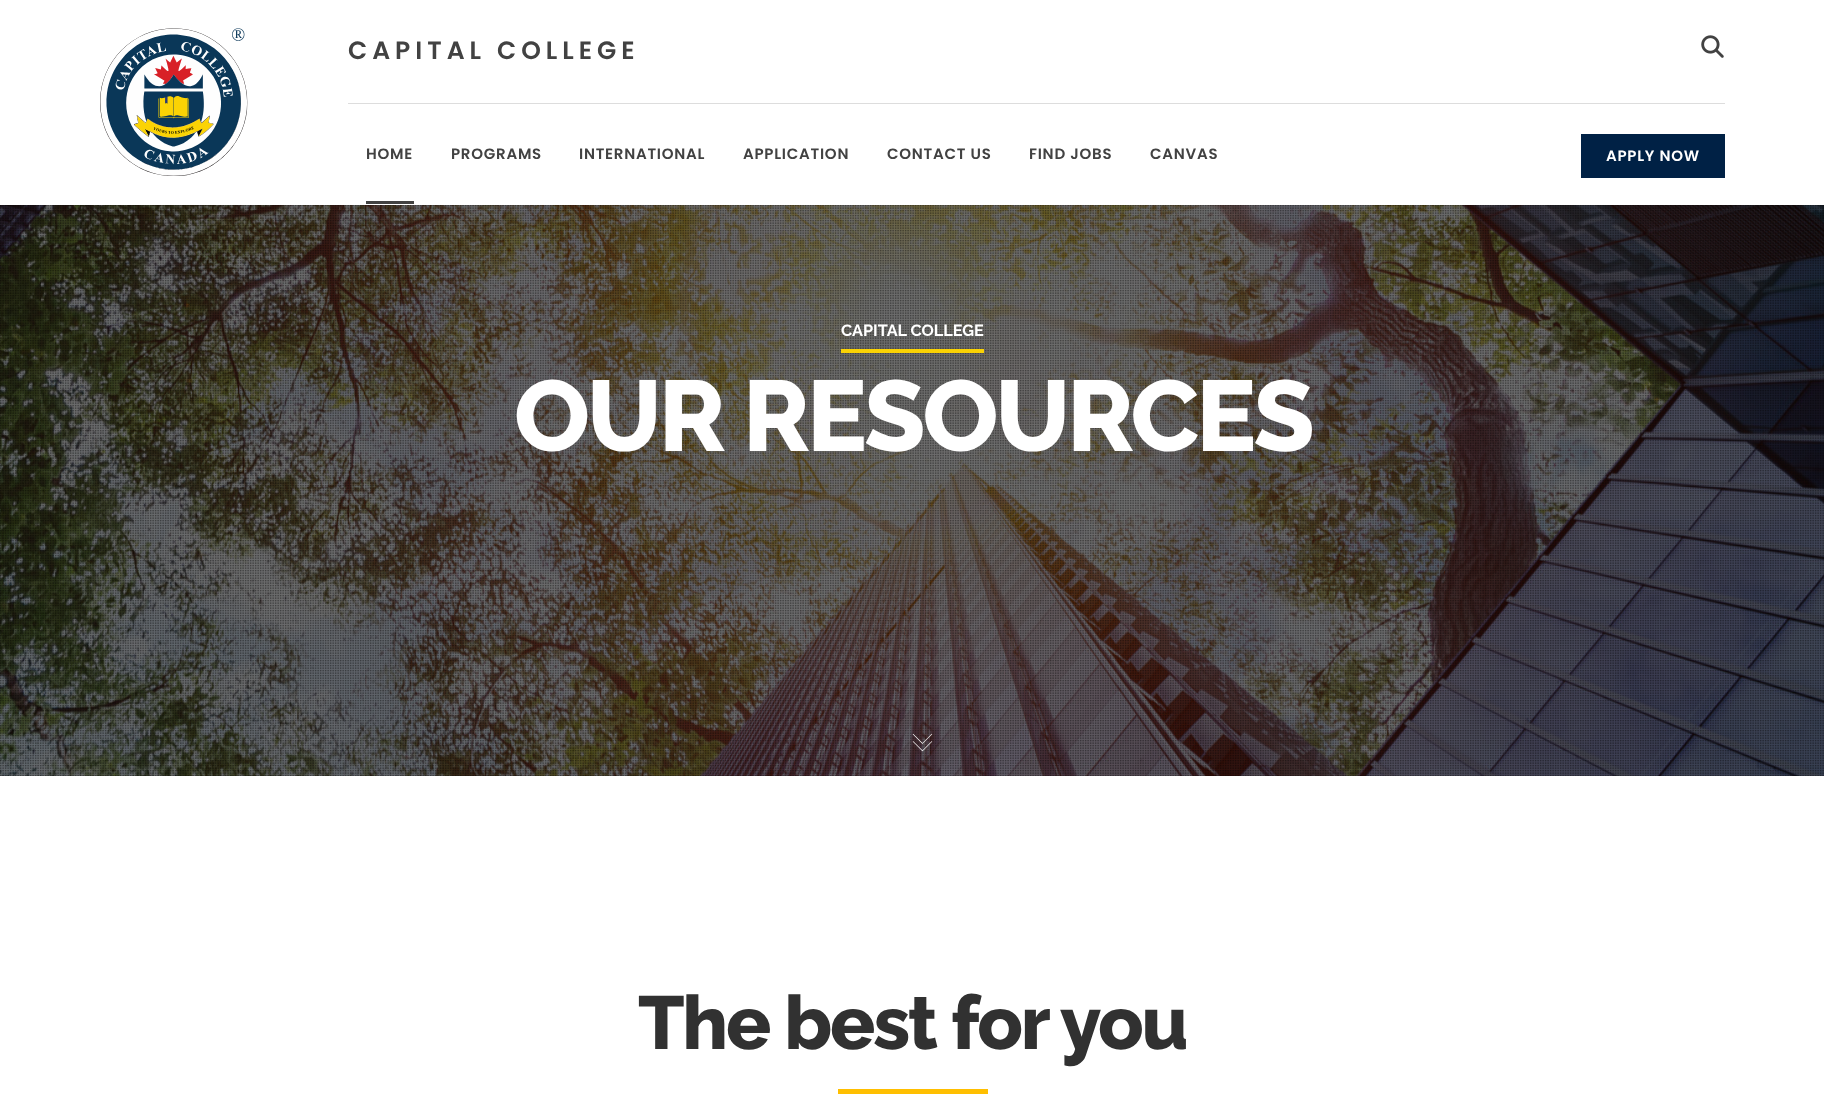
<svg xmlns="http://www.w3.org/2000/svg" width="1824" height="1108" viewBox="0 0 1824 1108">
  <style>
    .t1 { font: 600 25px Poppins; letter-spacing: 5px; fill: #424242; }
    .t2 { font: 600 15px Poppins; letter-spacing: 0.75px; fill: #424242; }
    .t3 { font: 600 15px Poppins; letter-spacing: 0.75px; fill: #fff; }
    .t4 { font: bold 16.25px Raleway; fill: #fff; }
    .t5 { font: 800 100px Raleway; letter-spacing: -3px; fill: #fff; }
    .t6 { font: 800 75px Raleway; letter-spacing: -2.25px; fill: #313131; }
  </style>
  <rect width="100%" height="100%" fill="#fff"/>
  <image x="100" y="28" width="148" height="148" href="images/1.png"/>
  <text x="348" y="59" class="t1">CAPITAL COLLEGE</text>
  <image x="1701" y="35" width="23" height="23" href="images/2.png"/>
  <rect x="348" y="103" width="1377" height="1" fill="#ddd"/>
  <text x="366" y="159" class="t2">HOME</text>
  <rect x="366" y="201" width="48" height="3" fill="#424242"/>
  <text x="451" y="159" class="t2">PROGRAMS</text>
  <text x="579" y="159" class="t2">INTERNATIONAL</text>
  <text x="743" y="159" class="t2">APPLICATION</text>
  <text x="887" y="159" class="t2">CONTACT US</text>
  <text x="1029" y="159" class="t2">FIND JOBS</text>
  <text x="1150" y="159" class="t2">CANVAS</text>
  <rect x="1581" y="134" width="144" height="44" fill="#002145"/>
  <text x="1606" y="161" class="t3">APPLY NOW</text>
  <image x="0" y="205" width="1824" height="571" href="images/3.png"/>
  <image x="0" y="205" width="1824" height="571" href="images/4.png"/>
  <rect x="841" y="349" width="143" height="4" fill="#fad204"/>
  <text x="841" y="336" class="t4">CAPITAL COLLEGE</text>
  <text x="514" y="451" class="t5">OUR RESOURCES</text>
  <image x="912" y="733" width="21" height="19" href="images/5.png"/>
  <text x="638" y="1049" class="t6">The best for you</text>
  <rect x="838" y="1089" width="150" height="5" fill="#ffbf00"/>
</svg>
